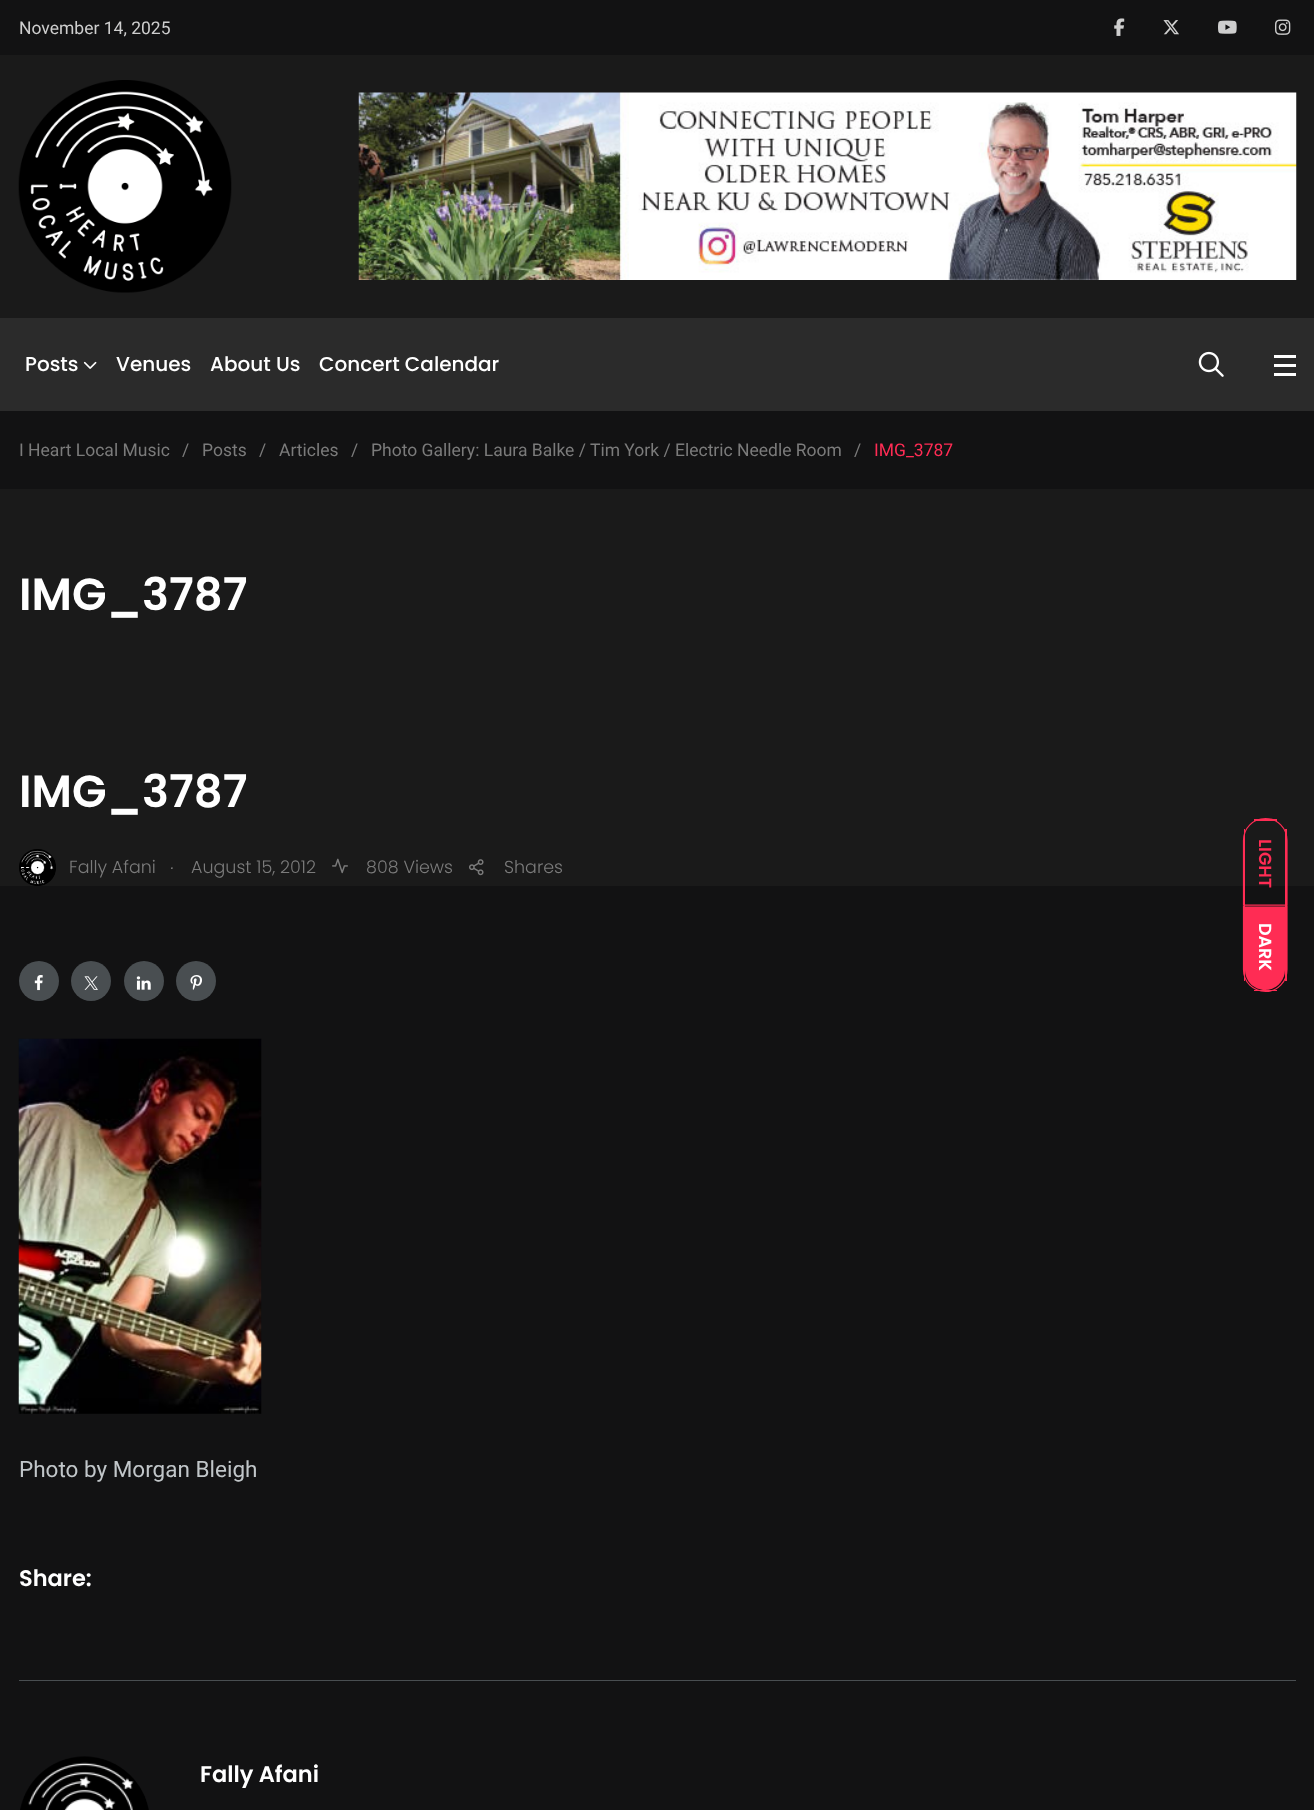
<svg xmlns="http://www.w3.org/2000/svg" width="1314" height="1810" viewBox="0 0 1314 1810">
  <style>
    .t1 { font: 17.5px Roboto; fill: #cecece; }
    .t2 { font: 500 20px Poppins; fill: #fff; }
    .t3 { font: 17.5px Roboto; fill: #7b7b7b; }
    .t4 { font: 17.5px Roboto; fill: #ff2c54; }
    .t5 { font: 600 45px Poppins; fill: #fff; }
    .t6 { font: 300 17.5px Poppins; fill: #7b7b7b; }
    .t7 { font: italic 300 17.5px Poppins; fill: #7b7b7b; }
    .t8 { font: 22.5px Roboto; fill: #c1c6c9; }
    .t9 { font: 600 22.5px Poppins; fill: #fff; }
    .t10 { font: 600 17.5px Poppins; fill: #ff2c54; }
    .t11 { font: 600 17.5px Poppins; fill: #fff; }
  </style>
  <rect width="100%" height="100%" fill="#121213"/>
  <text x="19" y="34" class="t1">November 14, 2025</text>
  <image x="1114" y="18" width="11" height="18" href="images/1.png"/>
  <image x="1163" y="20" width="16" height="15" href="images/2.png"/>
  <image x="1218" y="20" width="19" height="14" href="images/3.png"/>
  <image x="1275" y="19" width="16" height="16" href="images/4.png"/>
  <rect x="0" y="55" width="1314" height="263" fill="#1a1a1a"/>
  <image x="18" y="80" width="214" height="213" href="images/5.png"/>
  <image x="358" y="92" width="939" height="188" href="images/6.png"/>
  <rect x="0" y="318" width="1314" height="93" fill="#2b2b2b"/>
  <text x="25" y="371" class="t2">Posts</text>
  <image x="83" y="361" width="14" height="8" href="images/7.png"/>
  <text x="116" y="371" class="t2">Venues</text>
  <text x="210" y="371" class="t2">About Us</text>
  <text x="319" y="371" class="t2">Concert Calendar</text>
  <image x="1198" y="351" width="26" height="26" href="images/8.png"/>
  <rect x="1274" y="355" width="22" height="3" fill="#fff"/>
  <rect x="1274" y="364" width="22" height="3" fill="#fff"/>
  <rect x="1274" y="373" width="22" height="3" fill="#fff"/>
  <text x="19" y="456" class="t3">I Heart Local Music</text>
  <text x="182" y="456" class="t3">/</text>
  <text x="202" y="456" class="t3">Posts</text>
  <text x="259" y="456" class="t3">/</text>
  <text x="279" y="456" class="t3">Articles</text>
  <text x="351" y="456" class="t3">/</text>
  <text x="371" y="456" class="t3">Photo Gallery: Laura Balke / Tim York / Electric Needle Room</text>
  <text x="854" y="456" class="t3">/</text>
  <text x="874" y="456" class="t4">IMG_3787</text>
  <rect x="0" y="489" width="1314" height="397" fill="#1a1a1a"/>
  <text x="19" y="610" class="t5">IMG_3787</text>
  <text x="19" y="807" class="t5">IMG_3787</text>
  <image x="19" y="849" width="37" height="37" href="images/9.png"/>
  <text x="69" y="873" class="t6">Fally Afani</text>
  <text x="171" y="869" class="t7">.</text>
  <text x="191" y="873" class="t6">August 15, 2012</text>
  <image x="332" y="858" width="16" height="16" href="images/10.png"/>
  <text x="366" y="873" class="t6">808 Views</text>
  <image x="469" y="859" width="15" height="17" href="images/11.png"/>
  <text x="504" y="873" class="t6">Shares</text>
  <circle cx="39" cy="981" r="20" fill="#494e51"/>
  <image x="34" y="975" width="9" height="16" href="images/12.png"/>
  <circle cx="91" cy="981" r="20" fill="#494e51"/>
  <image x="84" y="976" width="14" height="14" href="images/13.png"/>
  <circle cx="144" cy="981" r="20" fill="#494e51"/>
  <image x="136" y="976" width="15" height="14" href="images/14.png"/>
  <circle cx="196" cy="981" r="20" fill="#494e51"/>
  <image x="190" y="975" width="12" height="15" href="images/15.png"/>
  <image x="18" y="1038" width="244" height="376" href="images/16.png"/>
  <text x="19" y="1477" class="t8">Photo by Morgan Bleigh</text>
  <text x="19" y="1586" class="t9">Share:</text>
  <rect x="19" y="1680" width="1277" height="1" fill="#494e51"/>
  <image x="20" y="1756" width="129" height="54" href="images/17.png"/>
  <text x="200" y="1782" class="t9">Fally Afani</text>
  <path d="M1287 840.5V905H1243.5V840.5C1243.5 828 1253 818.5 1265.5 818.5C1277.5 818.5 1287 828 1287 840.5Z" fill="none" stroke="#ff2c54" stroke-width="1.2"/>
  <rect x="1285" y="829" width="2" height="77" fill="#ff2c54"/>
  <rect x="1244" y="829" width="1" height="77" fill="#ff2c54"/>
  <rect x="1254" y="819" width="23" height="2" fill="#ff2c54"/>
  <text x="1259" y="839" transform="rotate(90 1259 839)" class="t10">LIGHT</text>
  <path d="M1285 907V970C1285 981 1276 990 1265 990C1254 990 1245 981 1245 970V907Z" fill="#ff2c54"/>
  <path d="M1287 906V969.5C1287 982 1277.5 991.5 1265.5 991.5C1253 991.5 1243.5 982 1243.5 969.5V906Z" fill="none" stroke="#ff2c54" stroke-width="1.2"/>
  <rect x="1285" y="906" width="2" height="75" fill="#ff2c54"/>
  <rect x="1254" y="990" width="23" height="1" fill="#ff2c54"/>
  <rect x="1244" y="906" width="1" height="75" fill="#ff2c54"/>
  <text x="1259" y="923" transform="rotate(90 1259 923)" class="t11">DARK</text>
</svg>
